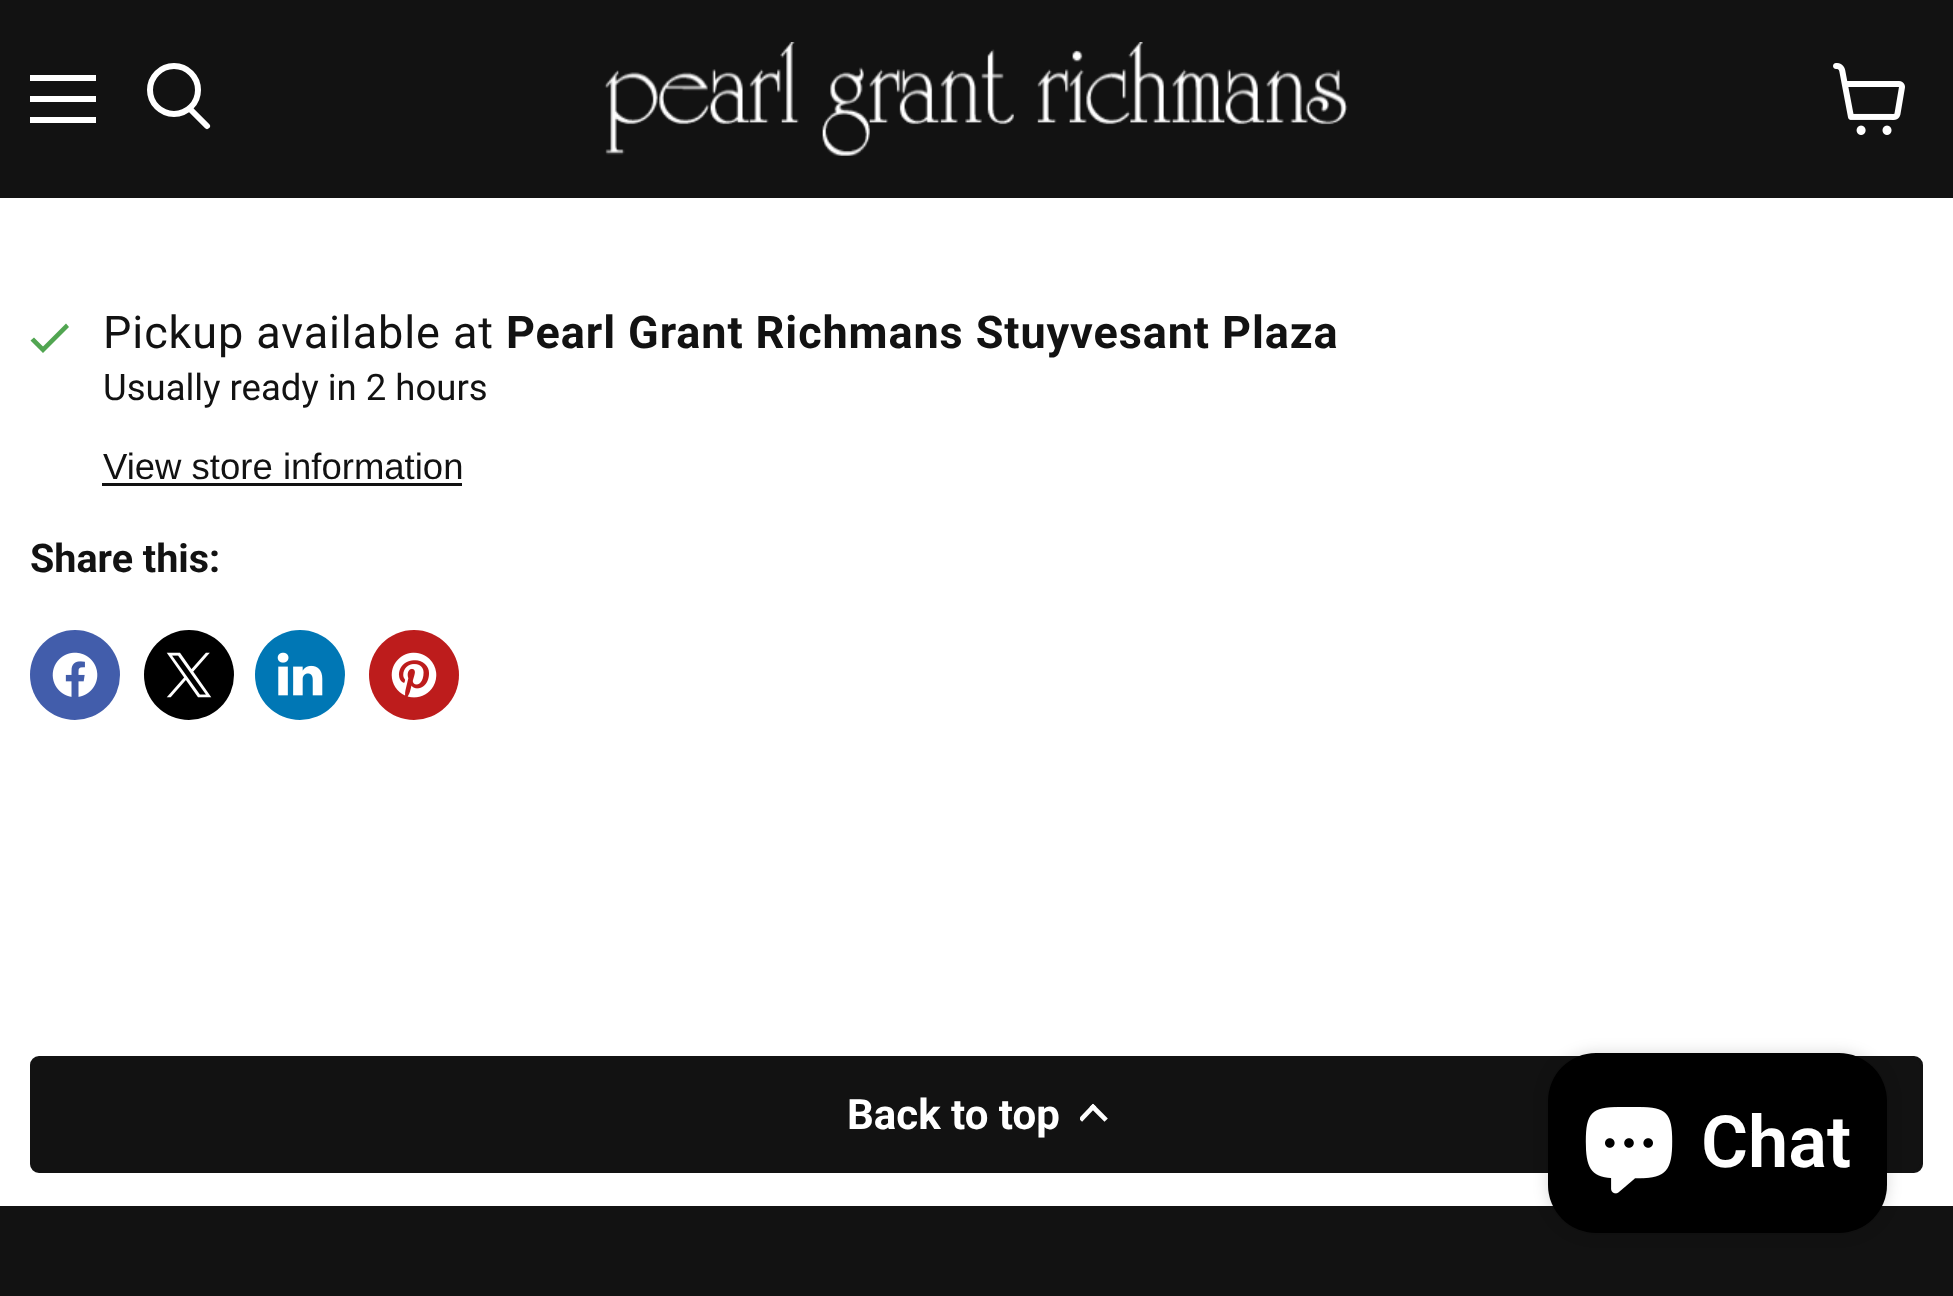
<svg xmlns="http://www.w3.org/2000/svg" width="1953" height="1296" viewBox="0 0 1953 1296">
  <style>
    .t1 { font: 45px Roboto; letter-spacing: 0.9px; fill: #121212; }
    .t2 { font: bold 45px Roboto; letter-spacing: 0.9px; fill: #121212; }
    .t3 { font: 36.5px Roboto; fill: #121212; }
    .t4 { font: 36.5px Liberation Sans; fill: #121212; }
    .t5 { font: bold 39.5px Roboto; fill: #121212; }
    .t6 { font: bold 42px Roboto; fill: #fff; }
    .t7 { font: 600 72px Roboto; fill: #fff; }
  </style>
  <defs>
    <clipPath id="clip1"><rect x="1080" y="1104" width="30" height="21"/></clipPath>
  </defs>
  <rect width="100%" height="100%" fill="#fff"/>
  <rect x="0" y="0" width="1953" height="198" fill="#121212"/>
  <rect x="30" y="75" width="66" height="6" fill="#fff"/>
  <rect x="30" y="96" width="66" height="6" fill="#fff"/>
  <rect x="30" y="117" width="66" height="6" fill="#fff"/>
  <path d="M207 126L190.5 109.5" fill="none" stroke="#fff" stroke-width="6" stroke-linecap="round"/>
  <circle cx="174" cy="90" r="24" fill="none" stroke="#fff" stroke-width="6"/>
  <image x="604" y="42" width="744" height="114" href="images/1.png"/>
  <image x="1833" y="63" width="72" height="72" href="images/2.png"/>
  <path d="M43 349.5L41.5 351.5L43 353L44.5 351.5ZM30.5 340.5L41.5 351.5L44.5 348L34 337.5ZM44.5 351.5L69 327L66 323.5L41.5 348Z" fill="#51a551"/>
  <text x="103" y="348" class="t1">Pickup available at</text>
  <text x="506" y="348" class="t2">Pearl Grant Richmans Stuyvesant Plaza</text>
  <text x="103" y="400" class="t3">Usually ready in 2 hours</text>
  <text x="103" y="479" class="t4">View store information</text>
  <rect x="102" y="483" width="360" height="3" fill="#121212"/>
  <text x="30" y="572" class="t5">Share this:</text>
  <circle cx="75" cy="675" r="45" fill="#425dab"/>
  <image x="52" y="652" width="46" height="45" href="images/3.png"/>
  <circle cx="189" cy="675" r="45" fill="#000"/>
  <image x="166" y="652" width="46" height="46" href="images/4.png"/>
  <circle cx="300" cy="675" r="45" fill="#0077b5"/>
  <image x="277" y="652" width="46" height="44" href="images/5.png"/>
  <circle cx="414" cy="675" r="45" fill="#bd1c1c"/>
  <image x="391" y="652" width="46" height="46" href="images/6.png"/>
  <rect x="31.5" y="1057.5" width="1890" height="114" rx="7.5" fill="#121212" stroke="#121212" stroke-width="3"/>
  <text x="847" y="1129" class="t6">Back to top</text>
  <g clip-path="url(#clip1)">
    <path d="M1093 1107L1082 1118.5" fill="none" stroke="#fff" stroke-width="4.7" stroke-linecap="square"/>
  </g>
  <path d="M1093 1107L1104.5 1118.5" fill="none" stroke="#fff" stroke-width="4.7" stroke-linecap="square"/>
  <rect x="0" y="1206" width="1953" height="90" fill="#121212"/>
  <rect x="1548" y="1053" width="339" height="180" rx="48" fill="#00000026" filter="blur(7.5px)"/>
  <rect x="1548" y="1053" width="339" height="180" rx="48" fill="#000"/>
  <image x="1585" y="1107" width="88" height="87" href="images/7.png"/>
  <text x="1701" y="1167" class="t7">Chat</text>
</svg>
